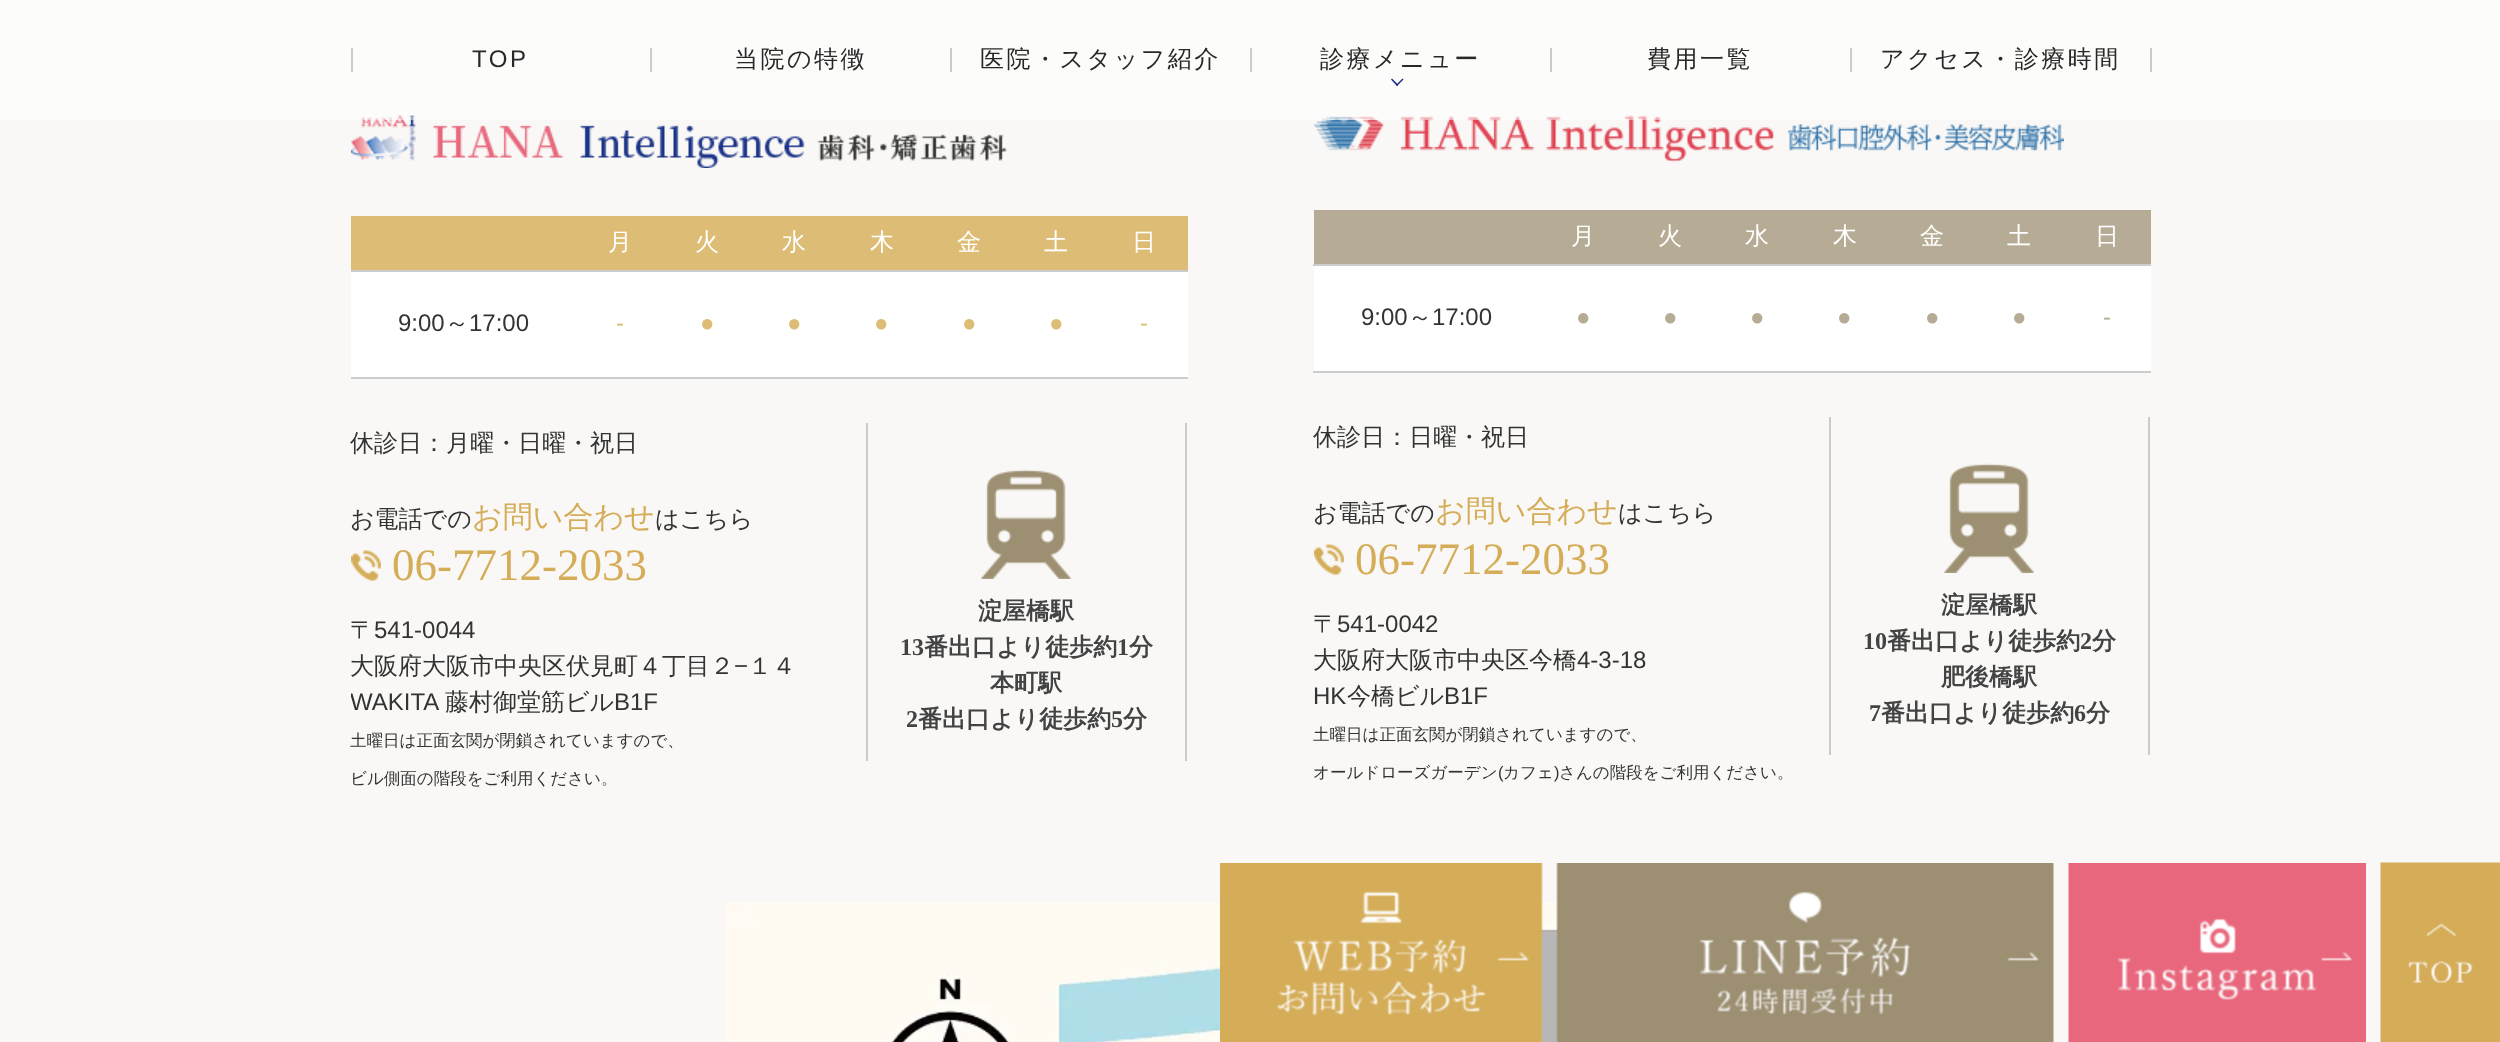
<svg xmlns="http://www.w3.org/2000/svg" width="2500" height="1042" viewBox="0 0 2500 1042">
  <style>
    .t1 { font: 24px Liberation Sans; letter-spacing: 2.5px; fill: #282828; }
    .t2 { font: 500 24px WenQuanYi Zen Hei; letter-spacing: 2.5px; fill: #282828; }
    .t3 { font: 500 24px WenQuanYi Zen Hei; fill: #fff; }
    .t4 { font: 24px Liberation Sans; fill: #333; }
    .t5 { font: 500 24px WenQuanYi Zen Hei; fill: #333; }
    .t6 { font: 24px Liberation Sans; fill: #ddbd75; }
    .t7 { font: 500 30px WenQuanYi Zen Hei; fill: #d5ad58; }
    .t8 { font: 45px Liberation Serif; fill: #d5ad58; }
    .t9 { font: 500 16.5px WenQuanYi Zen Hei; fill: #333; }
    .t10 { font: bold 24px WenQuanYi Zen Hei; fill: #434343; }
    .t11 { font: bold 24px Liberation Serif; fill: #434343; }
    .t12 { font: 24px Liberation Sans; fill: #b6ab94; }
    .t13 { font: 16.5px Liberation Sans; fill: #333; }
  </style>
  <defs>
    <clipPath id="clip1"><rect x="351" y="0" width="1800" height="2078"/></clipPath>
  </defs>
  <rect width="100%" height="100%" fill="#f9f8f6"/>
  <image x="351" y="115" width="656" height="53" href="images/1.png"/>
  <image x="1314" y="115" width="750" height="47" href="images/4.png"/>
  <rect x="0" y="0" width="2500" height="120" fill="#ffffff80"/>
  <rect x="351" y="48" width="2" height="24" fill="#ccc"/>
  <text x="472" y="67" class="t1">TOP</text>
  <rect x="650" y="48" width="2" height="24" fill="#ccc"/>
  <text x="734" y="67" class="t2">当院の特徴</text>
  <rect x="950" y="48" width="2" height="24" fill="#ccc"/>
  <text x="980" y="67" class="t2">医院・スタッフ紹介</text>
  <rect x="1250" y="48" width="2" height="24" fill="#ccc"/>
  <text x="1320" y="67" class="t2">診療メニュー</text>
  <rect x="1550" y="48" width="2" height="24" fill="#ccc"/>
  <path d="M1403.5 79.5L1397 86L1396 85L1402.5 78.5Z" fill="#162e85"/>
  <path d="M1398.5 85L1397 86L1391 79.5L1392 78.5Z" fill="#162e85"/>
  <text x="1647" y="67" class="t2">費用一覧</text>
  <rect x="1850" y="48" width="2" height="24" fill="#ccc"/>
  <text x="1880" y="67" class="t2">アクセス・診療時間</text>
  <rect x="2150" y="48" width="2" height="24" fill="#ccc"/>
  <rect x="351" y="216" width="837" height="54" fill="#ddbd75"/>
  <text x="608" y="250" class="t3">月</text>
  <text x="695" y="250" class="t3">火</text>
  <text x="782" y="250" class="t3">水</text>
  <text x="870" y="250" class="t3">木</text>
  <text x="957" y="250" class="t3">金</text>
  <text x="1044" y="250" class="t3">土</text>
  <rect x="351" y="270" width="837" height="2" fill="#ccc"/>
  <text x="1132" y="250" class="t3">日</text>
  <rect x="351" y="272" width="837" height="105" fill="#fff"/>
  <text x="398" y="331" class="t4">9:00</text>
  <text x="445" y="331" class="t5">～</text>
  <text x="469" y="331" class="t4">17:00</text>
  <text x="616" y="331" class="t6">-</text>
  <text x="700" y="331" class="t6">●</text>
  <text x="787" y="331" class="t6">●</text>
  <text x="874" y="331" class="t6">●</text>
  <text x="962" y="331" class="t6">●</text>
  <text x="1049" y="331" class="t6">●</text>
  <rect x="351" y="377" width="837" height="2" fill="#ccc"/>
  <text x="1140" y="331" class="t6">-</text>
  <text x="350" y="451" class="t5">休診日：月曜・日曜・祝日</text>
  <text x="350" y="527" class="t5">お電話での</text>
  <text x="472" y="527" class="t7">お問い合わせ</text>
  <text x="655" y="527" class="t5">はこちら</text>
  <image x="351" y="550" width="30" height="31" href="images/2.png"/>
  <text x="392" y="580" class="t8">06-7712-2033</text>
  <text x="350" y="638" class="t5">〒</text>
  <text x="374" y="638" class="t4">541-0044</text>
  <text x="350" y="674" class="t5">大阪府大阪市中央区伏見町４丁目２</text>
  <text x="734" y="674" class="t4">−</text>
  <text x="748" y="674" class="t5">１４</text>
  <g clip-path="url(#clip1)">
    <text x="350" y="710" class="t4">WAKITA</text>
  </g>
  <text x="445" y="710" class="t5">藤村御堂筋ビル</text>
  <text x="614" y="710" class="t4">B1F</text>
  <text x="350" y="746" class="t9">土曜日は正面玄関が閉鎖されていますので、</text>
  <text x="350" y="784" class="t9">ビル側面の階段をご利用ください。</text>
  <rect x="1185" y="423" width="2" height="338" fill="#ccc"/>
  <rect x="866" y="423" width="2" height="338" fill="#ccc"/>
  <image x="981" y="469" width="90" height="110" href="images/3.png"/>
  <text x="978" y="619" class="t10">淀屋橋駅</text>
  <text x="900" y="655" class="t11">13</text>
  <text x="924" y="655" class="t10">番出口より徒歩約</text>
  <text x="1117" y="655" class="t11">1</text>
  <text x="1129" y="655" class="t10">分</text>
  <text x="990" y="691" class="t10">本町駅</text>
  <text x="906" y="727" class="t11">2</text>
  <text x="918" y="727" class="t10">番出口より徒歩約</text>
  <text x="1111" y="727" class="t11">5</text>
  <text x="1123" y="727" class="t10">分</text>
  <rect x="1314" y="210" width="837" height="54" fill="#b6ab94"/>
  <text x="1571" y="244" class="t3">月</text>
  <text x="1658" y="244" class="t3">火</text>
  <text x="1745" y="244" class="t3">水</text>
  <text x="1833" y="244" class="t3">木</text>
  <text x="1920" y="244" class="t3">金</text>
  <text x="2007" y="244" class="t3">土</text>
  <rect x="1313" y="264" width="838" height="2" fill="#ccc"/>
  <text x="2095" y="244" class="t3">日</text>
  <rect x="1314" y="266" width="837" height="105" fill="#fff"/>
  <text x="1361" y="325" class="t4">9:00</text>
  <text x="1408" y="325" class="t5">～</text>
  <text x="1432" y="325" class="t4">17:00</text>
  <text x="1576" y="325" class="t12">●</text>
  <text x="1663" y="325" class="t12">●</text>
  <text x="1750" y="325" class="t12">●</text>
  <text x="1837" y="325" class="t12">●</text>
  <text x="1925" y="325" class="t12">●</text>
  <text x="2012" y="325" class="t12">●</text>
  <rect x="1313" y="371" width="838" height="2" fill="#ccc"/>
  <text x="2103" y="325" class="t12">-</text>
  <text x="1313" y="445" class="t5">休診日：日曜・祝日</text>
  <text x="1313" y="521" class="t5">お電話での</text>
  <text x="1435" y="521" class="t7">お問い合わせ</text>
  <text x="1618" y="521" class="t5">はこちら</text>
  <image x="1314" y="544" width="30" height="31" href="images/5.png"/>
  <text x="1355" y="574" class="t8">06-7712-2033</text>
  <text x="1313" y="632" class="t5">〒</text>
  <text x="1337" y="632" class="t4">541-0042</text>
  <text x="1313" y="668" class="t5">大阪府大阪市中央区今橋</text>
  <text x="1577" y="668" class="t4">4-3-18</text>
  <text x="1313" y="704" class="t4">HK</text>
  <text x="1347" y="704" class="t5">今橋ビル</text>
  <text x="1444" y="704" class="t4">B1F</text>
  <text x="1313" y="740" class="t9">土曜日は正面玄関が閉鎖されていますので、</text>
  <text x="1313" y="778" class="t9">オールドローズガーデン</text>
  <text x="1498" y="778" class="t13">(</text>
  <text x="1503" y="778" class="t9">カフェ</text>
  <text x="1554" y="778" class="t13">)</text>
  <text x="1559" y="778" class="t9">さんの階段をご利用ください。</text>
  <rect x="2148" y="417" width="2" height="338" fill="#ccc"/>
  <rect x="1829" y="417" width="2" height="338" fill="#ccc"/>
  <image x="1944" y="463" width="90" height="110" href="images/6.png"/>
  <text x="1941" y="613" class="t10">淀屋橋駅</text>
  <text x="1863" y="649" class="t11">10</text>
  <text x="1887" y="649" class="t10">番出口より徒歩約</text>
  <text x="2080" y="649" class="t11">2</text>
  <text x="2092" y="649" class="t10">分</text>
  <text x="1941" y="685" class="t10">肥後橋駅</text>
  <text x="1869" y="721" class="t11">7</text>
  <text x="1881" y="721" class="t10">番出口より徒歩約</text>
  <text x="2074" y="721" class="t11">6</text>
  <text x="2086" y="721" class="t10">分</text>
  <image x="726" y="902" width="832" height="140" href="images/7.png"/>
  <image x="1220" y="863" width="323" height="179" href="images/8.png"/>
  <image x="1556" y="863" width="498" height="179" href="images/9.png"/>
  <image x="2068" y="863" width="298" height="179" href="images/10.png"/>
  <image x="2380" y="862" width="120" height="180" href="images/11.png"/>
</svg>
